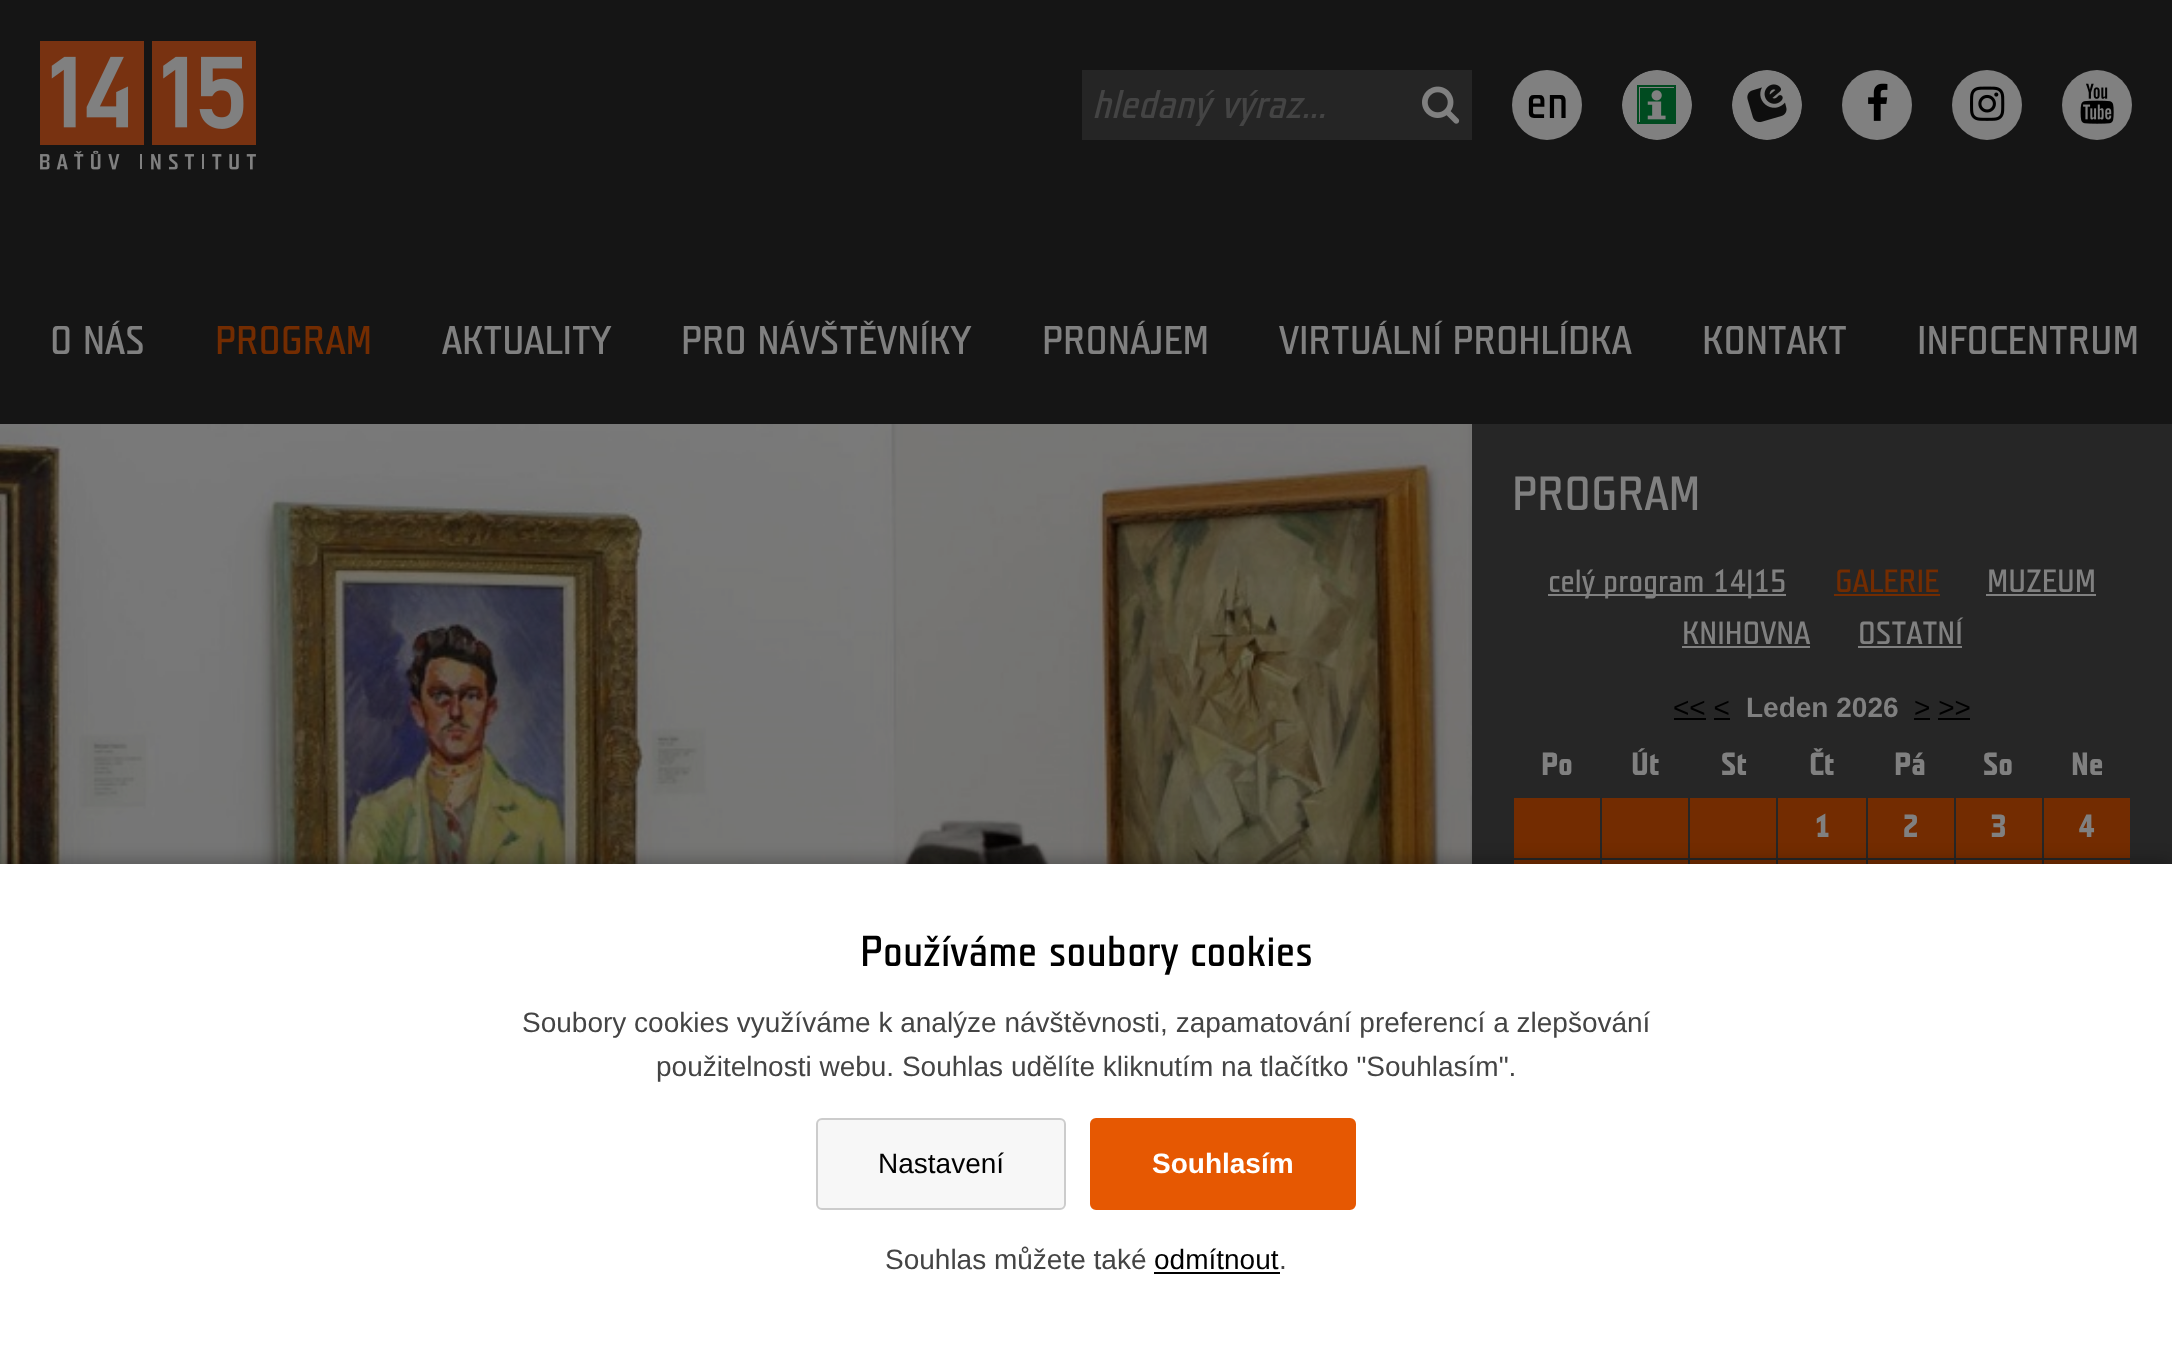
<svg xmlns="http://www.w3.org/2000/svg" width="2172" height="1361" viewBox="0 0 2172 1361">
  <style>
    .t1 { font: italic 40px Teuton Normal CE; fill: #444; }
    .t2 { font: 46px Teuton Normal CE; fill: #000; }
    .t3 { font: 40px Teuton Normal CE; fill: #808080; }
    .t4 { font: 40px Teuton Normal CE; fill: #732c01; }
    .t5 { font: 48px Teuton Normal CE; fill: #808080; }
    .t6 { font: 32px Teuton Normal CE; fill: #808080; }
    .t7 { font: 32px Teuton Normal CE; fill: #732c01; }
    .t8 { font: 28px Liberation Sans; fill: #000; }
    .t9 { font: bold 28px Liberation Sans; fill: #808080; }
    .t10 { font: bold 32px Teuton Normal CE; fill: #808080; }
    .t11 { font: 43.25px Teuton Normal CE; fill: #000; }
    .t12 { font: 28px Liberation Sans; fill: #444; }
    .t13 { font: bold 28px Liberation Sans; fill: #fff; }
  </style>
  <rect width="100%" height="100%" fill="#151515"/>
  <image x="40" y="41" width="216" height="129" href="images/1.png"/>
  <rect x="1082" y="70" width="390" height="70" fill="#252525"/>
  <text x="1092" y="118" class="t1">hledaný výraz...</text>
  <image x="1422" y="86" width="38" height="38" href="images/2.png"/>
  <circle cx="1547" cy="105" r="35" fill="#808080"/>
  <text x="1526" y="118" class="t2">en</text>
  <image x="1622" y="70" width="70" height="70" href="images/3.png"/>
  <image x="1732" y="70" width="70" height="70" href="images/4.png"/>
  <circle cx="1877" cy="105" r="35" fill="#808080"/>
  <image x="1868" y="83" width="20" height="38" href="images/5.png"/>
  <circle cx="1987" cy="105" r="35" fill="#808080"/>
  <image x="1970" y="86" width="35" height="35" href="images/6.png"/>
  <circle cx="2097" cy="105" r="35" fill="#808080"/>
  <image x="2080" y="83" width="34" height="41" href="images/7.png"/>
  <text x="50" y="354" class="t3">O NÁS</text>
  <text x="215" y="354" class="t4">PROGRAM</text>
  <text x="442" y="354" class="t3">AKTUALITY</text>
  <text x="681" y="354" class="t3">PRO NÁVŠTĚVNÍKY</text>
  <text x="1042" y="354" class="t3">PRONÁJEM</text>
  <text x="1279" y="354" class="t3">VIRTUÁLNÍ PROHLÍDKA</text>
  <text x="1702" y="354" class="t3">KONTAKT</text>
  <text x="1917" y="354" class="t3">INFOCENTRUM</text>
  <image x="0" y="424" width="1472" height="440" href="images/8.png"/>
  <rect x="1472" y="424" width="700" height="440" fill="#262626"/>
  <text x="1512" y="510" class="t5">PROGRAM</text>
  <rect x="1548" y="594" width="238" height="2" fill="#808080"/>
  <text x="1548" y="592" class="t6">celý program 14|15</text>
  <text x="1835" y="592" class="t7">GALERIE</text>
  <rect x="1834" y="594" width="106" height="2" fill="#732c01"/>
  <text x="1987" y="592" class="t6">MUZEUM</text>
  <rect x="1986" y="594" width="110" height="2" fill="#808080"/>
  <text x="1682" y="644" class="t6">KNIHOVNA</text>
  <rect x="1682" y="646" width="128" height="2" fill="#808080"/>
  <text x="1858" y="644" class="t6">OSTATNÍ</text>
  <rect x="1858" y="646" width="104" height="2" fill="#808080"/>
  <text x="1673" y="717" class="t8">&lt;&lt; &lt;</text>
  <rect x="1674" y="718" width="32" height="2" fill="#000"/>
  <text x="1746" y="717" class="t9">Leden 2026</text>
  <text x="1914" y="717" class="t8">&gt; &gt;&gt;</text>
  <rect x="1914" y="718" width="16" height="2" fill="#000"/>
  <rect x="1714" y="718" width="16" height="2" fill="#000"/>
  <rect x="1938" y="718" width="32" height="2" fill="#000"/>
  <text x="1541" y="775" class="t10">Po</text>
  <text x="1631" y="775" class="t10">Út</text>
  <text x="1721" y="775" class="t10">St</text>
  <text x="1809" y="775" class="t10">Čt</text>
  <text x="1894" y="775" class="t10">Pá</text>
  <text x="1983" y="775" class="t10">So</text>
  <text x="2071" y="775" class="t10">Ne</text>
  <rect x="1514" y="798" width="86" height="60" fill="#732c01"/>
  <rect x="1602" y="798" width="86" height="60" fill="#732c01"/>
  <rect x="1690" y="798" width="86" height="60" fill="#732c01"/>
  <rect x="1778" y="798" width="88" height="60" fill="#732c01"/>
  <text x="1814" y="837" class="t10">1</text>
  <rect x="1868" y="798" width="86" height="60" fill="#732c01"/>
  <text x="1902" y="837" class="t10">2</text>
  <rect x="1956" y="798" width="86" height="60" fill="#732c01"/>
  <text x="1990" y="837" class="t10">3</text>
  <rect x="2044" y="798" width="86" height="60" fill="#732c01"/>
  <text x="2078" y="837" class="t10">4</text>
  <rect x="1514" y="860" width="86" height="4" fill="#732c01"/>
  <rect x="1602" y="860" width="86" height="4" fill="#732c01"/>
  <rect x="1690" y="860" width="86" height="4" fill="#732c01"/>
  <rect x="1778" y="860" width="88" height="4" fill="#732c01"/>
  <rect x="1868" y="860" width="86" height="4" fill="#732c01"/>
  <rect x="1956" y="860" width="86" height="4" fill="#732c01"/>
  <rect x="2044" y="860" width="86" height="4" fill="#732c01"/>
  <rect x="0" y="860" width="2172" height="498" fill="#00000040" filter="blur(8px)"/>
  <rect x="0" y="864" width="2172" height="497" fill="#fff"/>
  <text x="860" y="966" class="t11">Používáme soubory cookies</text>
  <text x="522" y="1032" class="t12">Soubory cookies využíváme k analýze návštěvnosti, zapamatování preferencí a zlepšování</text>
  <text x="656" y="1076" class="t12">použitelnosti webu. Souhlas udělíte kliknutím na tlačítko "Souhlasím".</text>
  <rect x="817" y="1119" width="248" height="90" rx="5" fill="#f7f7f7" stroke="#ccc" stroke-width="2"/>
  <text x="878" y="1173" class="t8">Nastavení</text>
  <rect x="1091" y="1119" width="264" height="90" rx="5" fill="#e65802" stroke="#e65802" stroke-width="2"/>
  <text x="1152" y="1173" class="t13">Souhlasím</text>
  <text x="885" y="1269" class="t12">Souhlas můžete také</text>
  <text x="1154" y="1269" class="t8">odmítnout</text>
  <rect x="1154" y="1272" width="126" height="2" fill="#000"/>
  <text x="1279" y="1269" class="t12">.</text>
</svg>
